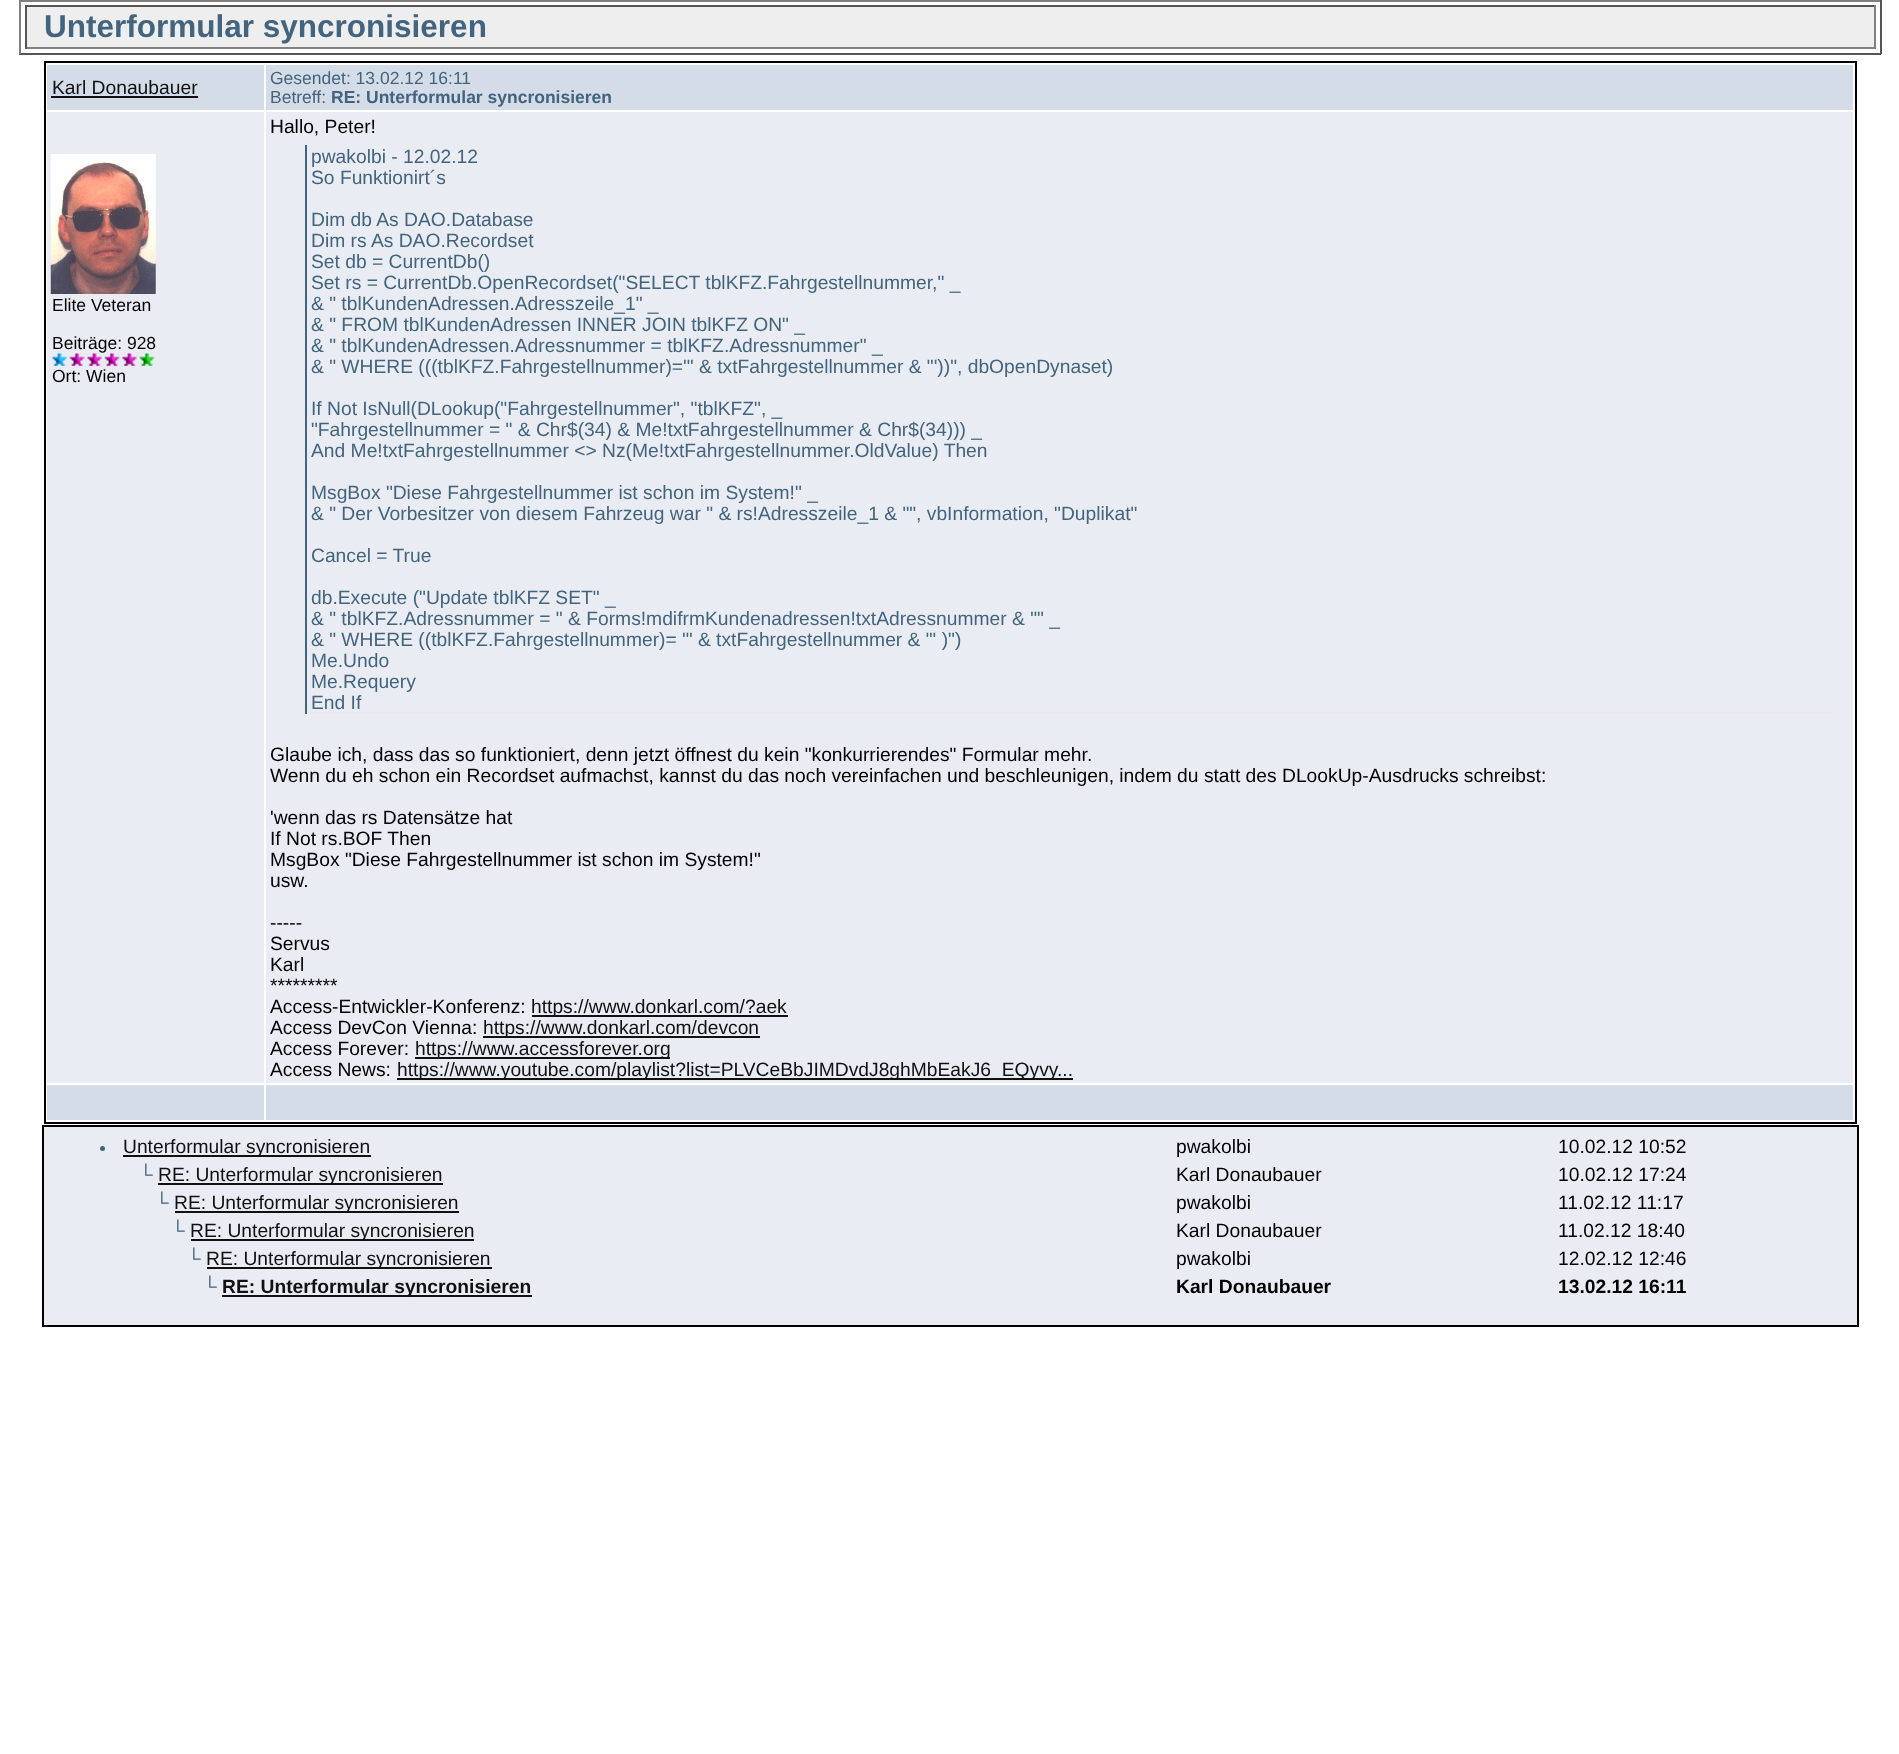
<svg xmlns="http://www.w3.org/2000/svg" width="1899" height="1754" viewBox="0 0 1899 1754">
  <style>
    .t1 { font: bold 31.5px Liberation Sans; fill: #43647e; }
    .t2 { font: 19.25px Liberation Sans; fill: #111; }
    .t3 { font: 17.5px Liberation Sans; fill: #43647e; }
    .t4 { font: bold 17.5px Liberation Sans; fill: #43647e; }
    .t5 { font: 17.5px Liberation Sans; fill: #000; }
    .t6 { font: 19.25px Liberation Sans; fill: #000; }
    .t7 { font: 19.25px Liberation Sans; fill: #43647e; }
    .t8 { font: bold 19.25px Liberation Sans; fill: #111; }
    .t9 { font: bold 19.25px Liberation Sans; fill: #000; }
  </style>
  <rect width="100%" height="100%" fill="#fff"/>
  <rect x="19" y="0" width="1862" height="2" fill="#808080"/>
  <rect x="1880" y="0" width="2" height="54" fill="#555"/>
  <rect x="19" y="53" width="1862" height="2" fill="#555"/>
  <rect x="19" y="0" width="2" height="54" fill="#808080"/>
  <rect x="27" y="7" width="1847" height="40" fill="#eee"/>
  <rect x="25" y="5" width="1851" height="2" fill="#555"/>
  <rect x="1874" y="5" width="2" height="44" fill="#808080"/>
  <rect x="25" y="47" width="1851" height="2" fill="#808080"/>
  <rect x="25" y="5" width="2" height="44" fill="#555"/>
  <text x="44" y="37" class="t1">Unterformular syncronisieren</text>
  <rect x="45" y="62" width="1811" height="1061" fill="none" stroke="#000" stroke-width="2"/>
  <rect x="47" y="65" width="217" height="45" fill="#d4dce8"/>
  <text x="52" y="94" class="t2">Karl Donaubauer</text>
  <rect x="51" y="96" width="147" height="2" fill="#111"/>
  <rect x="266" y="65" width="1587" height="45" fill="#d4dce8"/>
  <text x="270" y="84" class="t3">Gesendet: 13.02.12 16:11</text>
  <text x="270" y="103" class="t3">Betreff:</text>
  <text x="331" y="103" class="t4">RE: Unterformular syncronisieren</text>
  <rect x="47" y="112" width="217" height="971" fill="#e9edf3"/>
  <image x="50" y="154" width="106" height="140" href="images/1.png"/>
  <text x="52" y="311" class="t5">Elite Veteran</text>
  <text x="52" y="349" class="t5">Beiträge: 928</text>
  <image x="52" y="353" width="15" height="13" href="images/2.png"/>
  <image x="69" y="353" width="16" height="13" href="images/3.png"/>
  <image x="87" y="353" width="15" height="13" href="images/4.png"/>
  <image x="104" y="353" width="16" height="13" href="images/5.png"/>
  <image x="122" y="353" width="15" height="13" href="images/6.png"/>
  <image x="139" y="353" width="16" height="13" href="images/7.png"/>
  <text x="52" y="382" class="t5">Ort: Wien</text>
  <rect x="266" y="112" width="1587" height="971" fill="#e9edf3"/>
  <text x="270" y="133" class="t6">Hallo, Peter!</text>
  <rect x="305" y="712" width="1527" height="2" fill="#e7e9ef"/>
  <rect x="305" y="145" width="2" height="569" fill="#43647e"/>
  <text x="311" y="163" class="t7">pwakolbi - 12.02.12</text>
  <text x="311" y="184" class="t7">So Funktionirt´s</text>
  <text x="311" y="226" class="t7">Dim db As DAO.Database</text>
  <text x="311" y="247" class="t7">Dim rs As DAO.Recordset</text>
  <text x="311" y="268" class="t7">Set db = CurrentDb()</text>
  <text x="311" y="289" class="t7">Set rs = CurrentDb.OpenRecordset("SELECT tblKFZ.Fahrgestellnummer," _</text>
  <text x="311" y="310" class="t7">&amp; " tblKundenAdressen.Adresszeile_1" _</text>
  <text x="311" y="331" class="t7">&amp; " FROM tblKundenAdressen INNER JOIN tblKFZ ON" _</text>
  <text x="311" y="352" class="t7">&amp; " tblKundenAdressen.Adressnummer = tblKFZ.Adressnummer" _</text>
  <text x="311" y="373" class="t7">&amp; " WHERE (((tblKFZ.Fahrgestellnummer)='" &amp; txtFahrgestellnummer &amp; "'))", dbOpenDynaset)</text>
  <text x="311" y="415" class="t7">If Not IsNull(DLookup("Fahrgestellnummer", "tblKFZ", _</text>
  <text x="311" y="436" class="t7">"Fahrgestellnummer = " &amp; Chr$(34) &amp; Me!txtFahrgestellnummer &amp; Chr$(34))) _</text>
  <text x="311" y="457" class="t7">And Me!txtFahrgestellnummer &lt;&gt; Nz(Me!txtFahrgestellnummer.OldValue) Then</text>
  <text x="311" y="499" class="t7">MsgBox "Diese Fahrgestellnummer ist schon im System!" _</text>
  <text x="311" y="520" class="t7">&amp; " Der Vorbesitzer von diesem Fahrzeug war " &amp; rs!Adresszeile_1 &amp; "", vbInformation, "Duplikat"</text>
  <text x="311" y="562" class="t7">Cancel = True</text>
  <text x="311" y="604" class="t7">db.Execute ("Update tblKFZ SET" _</text>
  <text x="311" y="625" class="t7">&amp; " tblKFZ.Adressnummer = " &amp; Forms!mdifrmKundenadressen!txtAdressnummer &amp; "" _</text>
  <text x="311" y="646" class="t7">&amp; " WHERE ((tblKFZ.Fahrgestellnummer)= '" &amp; txtFahrgestellnummer &amp; "' )")</text>
  <text x="311" y="667" class="t7">Me.Undo</text>
  <text x="311" y="688" class="t7">Me.Requery</text>
  <text x="311" y="709" class="t7">End If</text>
  <text x="270" y="761" class="t6">Glaube ich, dass das so funktioniert, denn jetzt öffnest du kein "konkurrierendes" Formular mehr.</text>
  <text x="270" y="782" class="t6">Wenn du eh schon ein Recordset aufmachst, kannst du das noch vereinfachen und beschleunigen, indem du statt des DLookUp-Ausdrucks schreibst:</text>
  <text x="270" y="824" class="t6">'wenn das rs Datensätze hat</text>
  <text x="270" y="845" class="t6">If Not rs.BOF Then</text>
  <text x="270" y="866" class="t6">MsgBox "Diese Fahrgestellnummer ist schon im System!"</text>
  <text x="270" y="887" class="t6">usw.</text>
  <text x="270" y="929" class="t6">-----</text>
  <text x="270" y="950" class="t6">Servus</text>
  <text x="270" y="971" class="t6">Karl</text>
  <text x="270" y="992" class="t6">*********</text>
  <text x="270" y="1013" class="t6">Access-Entwickler-Konferenz:</text>
  <rect x="532" y="1015" width="256" height="2" fill="#111"/>
  <text x="531" y="1013" class="t2">https://www.donkarl.com/?aek</text>
  <text x="270" y="1034" class="t6">Access DevCon Vienna:</text>
  <rect x="483" y="1036" width="277" height="2" fill="#111"/>
  <text x="483" y="1034" class="t2">https://www.donkarl.com/devcon</text>
  <text x="270" y="1055" class="t6">Access Forever:</text>
  <rect x="415" y="1057" width="255" height="2" fill="#111"/>
  <text x="415" y="1055" class="t2">https://www.accessforever.org</text>
  <text x="270" y="1076" class="t6">Access News:</text>
  <rect x="397" y="1078" width="676" height="2" fill="#111"/>
  <text x="397" y="1076" class="t2">https://www.youtube.com/playlist?list=PLVCeBbJIMDvdJ8ghMbEakJ6_EQyvy...</text>
  <rect x="47" y="1085" width="217" height="35" fill="#d4dce8"/>
  <rect x="266" y="1085" width="1587" height="35" fill="#d4dce8"/>
  <rect x="43" y="1126" width="1815" height="200" fill="#e9edf3" stroke="#000" stroke-width="2"/>
  <circle cx="102.5" cy="1148.5" r="2.5" fill="#43647e"/>
  <rect x="123" y="1155" width="248" height="2" fill="#111"/>
  <text x="123" y="1153" class="t2">Unterformular syncronisieren</text>
  <text x="1176" y="1153" class="t6">pwakolbi</text>
  <text x="1558" y="1153" class="t6">10.02.12 10:52</text>
  <text x="139" y="1181" class="t7">└</text>
  <rect x="158" y="1183" width="285" height="2" fill="#111"/>
  <text x="158" y="1181" class="t2">RE: Unterformular syncronisieren</text>
  <text x="1176" y="1181" class="t6">Karl Donaubauer</text>
  <text x="1558" y="1181" class="t6">10.02.12 17:24</text>
  <text x="155" y="1209" class="t7">└</text>
  <rect x="175" y="1211" width="284" height="2" fill="#111"/>
  <text x="174" y="1209" class="t2">RE: Unterformular syncronisieren</text>
  <text x="1176" y="1209" class="t6">pwakolbi</text>
  <text x="1558" y="1209" class="t6">11.02.12 11:17</text>
  <text x="171" y="1237" class="t7">└</text>
  <rect x="191" y="1239" width="283" height="2" fill="#111"/>
  <text x="190" y="1237" class="t2">RE: Unterformular syncronisieren</text>
  <text x="1176" y="1237" class="t6">Karl Donaubauer</text>
  <text x="1558" y="1237" class="t6">11.02.12 18:40</text>
  <text x="187" y="1265" class="t7">└</text>
  <rect x="207" y="1267" width="285" height="2" fill="#111"/>
  <text x="206" y="1265" class="t2">RE: Unterformular syncronisieren</text>
  <text x="1176" y="1265" class="t6">pwakolbi</text>
  <text x="1558" y="1265" class="t6">12.02.12 12:46</text>
  <text x="203" y="1293" class="t7">└</text>
  <rect x="222" y="1295" width="310" height="2" fill="#111"/>
  <text x="222" y="1293" class="t8">RE: Unterformular syncronisieren</text>
  <text x="1176" y="1293" class="t9">Karl Donaubauer</text>
  <text x="1558" y="1293" class="t9">13.02.12 16:11</text>
</svg>
